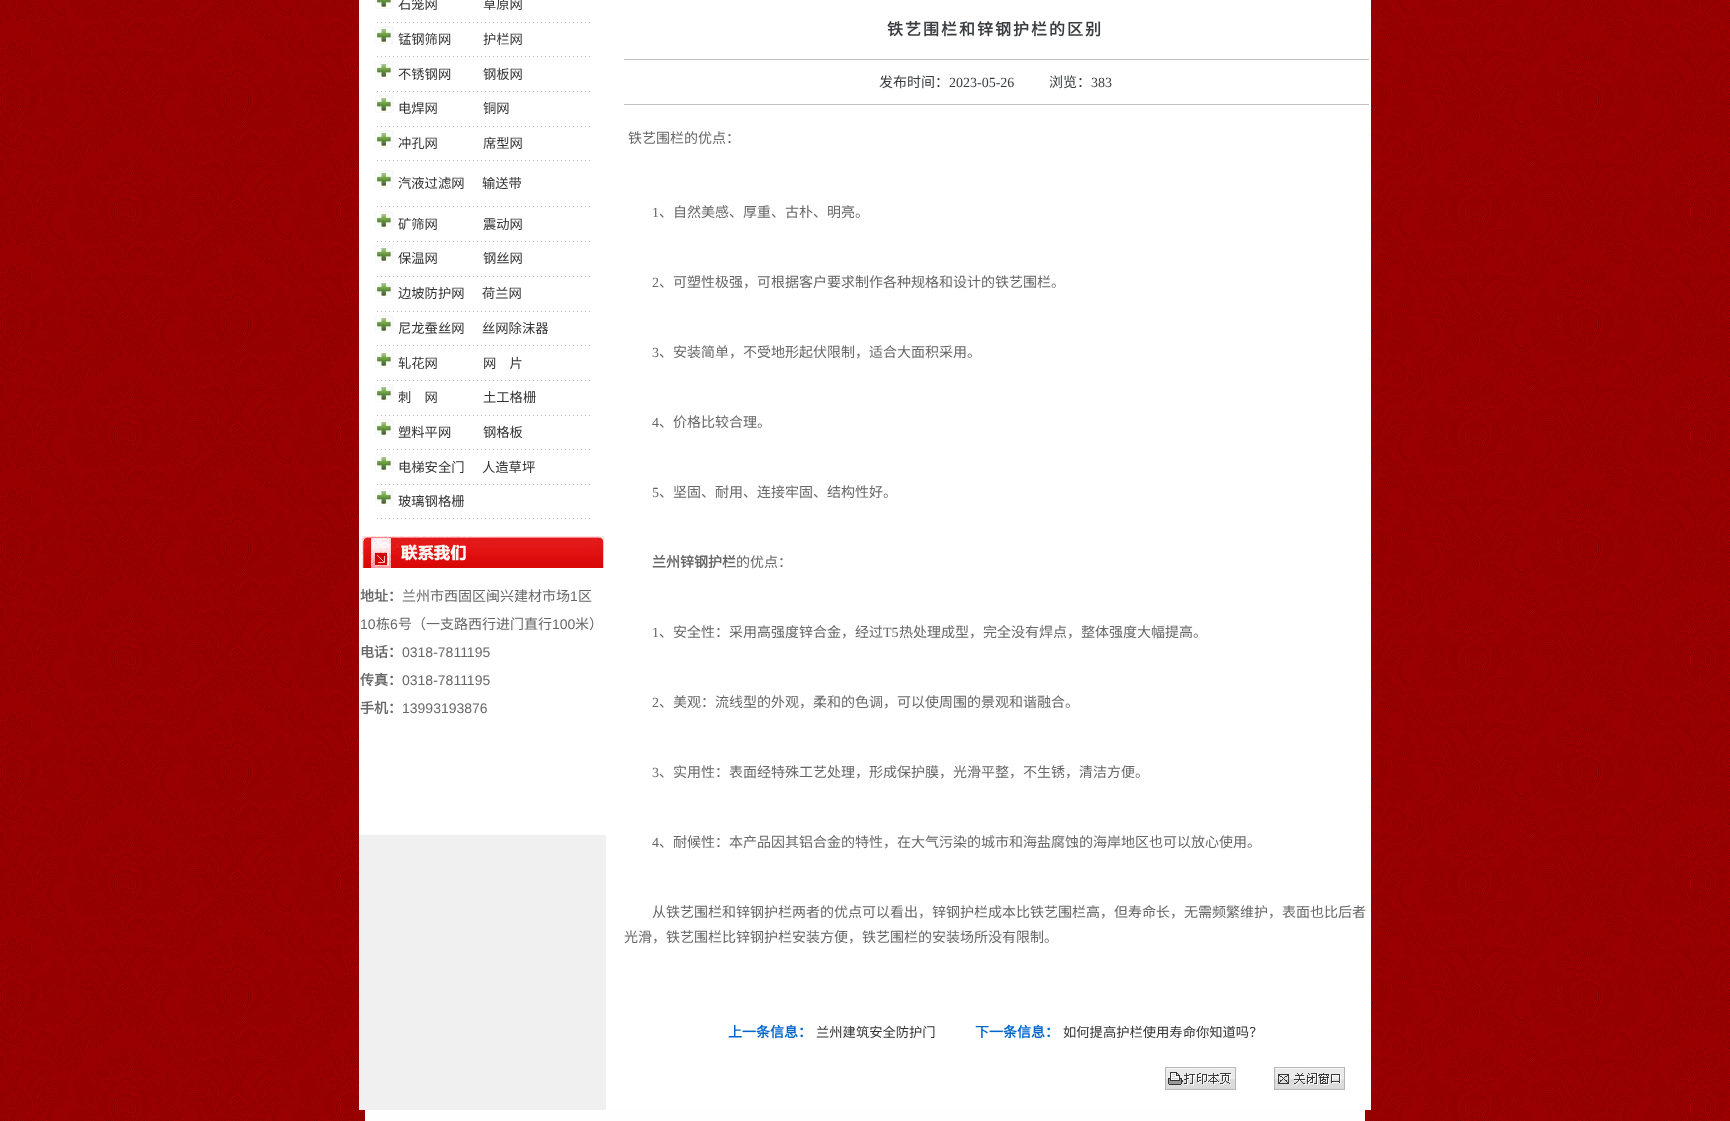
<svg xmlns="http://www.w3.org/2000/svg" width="1730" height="1121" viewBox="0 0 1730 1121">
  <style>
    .t1 { font: 13.3px Noto Sans CJK SC; fill: #333; }
    .t2 { font: bold 14px Noto Sans CJK SC; fill: #676767; }
    .t3 { font: 14px Noto Sans CJK SC; fill: #676767; }
    .t4 { font: 14px Liberation Sans; fill: #676767; }
    .t5 { font: bold 16px Noto Sans CJK SC; letter-spacing: 2px; fill: #393d40; }
    .t6 { font: 14px Noto Sans CJK SC; fill: #393d40; }
    .t7 { font: 14px Liberation Serif; fill: #393d40; }
    .t8 { font: 14px Liberation Serif; fill: #676767; }
    .t9 { font: bold 14px Noto Sans CJK SC; fill: #06c; }
  </style>
  <rect width="100%" height="100%" fill="#fff"/>
  <image x="0" y="0" width="1730" height="1121" href="images/1.png"/>
  <rect x="606" y="0" width="765" height="1110" fill="#fff"/>
  <rect x="359" y="835" width="247" height="275" fill="#f0f0f0"/>
  <rect x="359" y="0" width="247" height="835" fill="#fff"/>
  <image x="375" y="0" width="19" height="9" href="images/2.png"/>
  <text x="398" y="9" class="t1">石笼网</text>
  <text x="483" y="9" class="t1">草原网</text>
  <image x="377" y="22" width="213" height="1" href="images/3.png"/>
  <image x="375" y="26" width="19" height="18" href="images/4.png"/>
  <text x="398" y="44" class="t1">锰钢筛网</text>
  <text x="483" y="44" class="t1">护栏网</text>
  <image x="377" y="56" width="213" height="1" href="images/3.png"/>
  <image x="375" y="61" width="19" height="18" href="images/4.png"/>
  <text x="398" y="79" class="t1">不锈钢网</text>
  <text x="483" y="79" class="t1">钢板网</text>
  <image x="377" y="91" width="213" height="1" href="images/3.png"/>
  <image x="375" y="95" width="19" height="18" href="images/4.png"/>
  <text x="398" y="113" class="t1">电焊网</text>
  <text x="483" y="113" class="t1">铜网</text>
  <image x="377" y="126" width="213" height="1" href="images/3.png"/>
  <image x="375" y="130" width="19" height="18" href="images/4.png"/>
  <text x="398" y="148" class="t1">冲孔网</text>
  <text x="483" y="148" class="t1">席型网</text>
  <image x="377" y="160" width="213" height="1" href="images/3.png"/>
  <image x="375" y="170" width="19" height="18" href="images/4.png"/>
  <text x="398" y="188" class="t1">汽液过滤网</text>
  <text x="482" y="188" class="t1">输送带</text>
  <image x="377" y="206" width="213" height="1" href="images/3.png"/>
  <image x="375" y="211" width="19" height="18" href="images/4.png"/>
  <text x="398" y="229" class="t1">矿筛网</text>
  <text x="483" y="229" class="t1">震动网</text>
  <image x="377" y="241" width="213" height="1" href="images/3.png"/>
  <image x="375" y="245" width="19" height="18" href="images/4.png"/>
  <text x="398" y="263" class="t1">保温网</text>
  <text x="483" y="263" class="t1">钢丝网</text>
  <image x="377" y="276" width="213" height="1" href="images/3.png"/>
  <image x="375" y="280" width="19" height="18" href="images/4.png"/>
  <text x="398" y="298" class="t1">边坡防护网</text>
  <text x="482" y="298" class="t1">荷兰网</text>
  <image x="377" y="311" width="213" height="1" href="images/3.png"/>
  <image x="375" y="315" width="19" height="18" href="images/4.png"/>
  <text x="398" y="333" class="t1">尼龙蚕丝网</text>
  <text x="482" y="333" class="t1">丝网除沫器</text>
  <image x="377" y="345" width="213" height="1" href="images/3.png"/>
  <image x="375" y="350" width="19" height="18" href="images/4.png"/>
  <text x="398" y="368" class="t1">轧花网</text>
  <text x="483" y="368" class="t1">网　片</text>
  <image x="377" y="380" width="213" height="1" href="images/3.png"/>
  <image x="375" y="384" width="19" height="18" href="images/4.png"/>
  <text x="398" y="402" class="t1">刺　网</text>
  <text x="483" y="402" class="t1">土工格栅</text>
  <image x="377" y="415" width="213" height="1" href="images/3.png"/>
  <image x="375" y="419" width="19" height="18" href="images/4.png"/>
  <text x="398" y="437" class="t1">塑料平网</text>
  <text x="483" y="437" class="t1">钢格板</text>
  <image x="377" y="449" width="213" height="1" href="images/3.png"/>
  <image x="375" y="454" width="19" height="18" href="images/4.png"/>
  <text x="398" y="472" class="t1">电梯安全门</text>
  <text x="482" y="472" class="t1">人造草坪</text>
  <image x="377" y="484" width="213" height="1" href="images/3.png"/>
  <image x="375" y="488" width="19" height="18" href="images/4.png"/>
  <text x="398" y="506" class="t1">玻璃钢格栅</text>
  <image x="377" y="518" width="213" height="1" href="images/3.png"/>
  <image x="362" y="536" width="242" height="32" href="images/5.png"/>
  <text x="360" y="601" class="t2">地址：</text>
  <text x="402" y="601" class="t3">兰州市西固区闽兴建材市场</text>
  <text x="570" y="601" class="t4">1</text>
  <text x="578" y="601" class="t3">区</text>
  <text x="360" y="629" class="t4">10</text>
  <text x="376" y="629" class="t3">栋</text>
  <text x="390" y="629" class="t4">6</text>
  <text x="398" y="629" class="t3">号（一支路西行进门直行</text>
  <text x="552" y="629" class="t4">100</text>
  <text x="575" y="629" class="t3">米）</text>
  <text x="360" y="657" class="t2">电话：</text>
  <text x="402" y="657" class="t4">0318-7811195</text>
  <text x="360" y="685" class="t2">传真：</text>
  <text x="402" y="685" class="t4">0318-7811195</text>
  <text x="360" y="713" class="t2">手机：</text>
  <text x="402" y="713" class="t4">13993193876</text>
  <text x="887" y="35" class="t5">铁艺围栏和锌钢护栏的区别</text>
  <rect x="624" y="59" width="745" height="1" fill="#c0c0c0"/>
  <text x="879" y="87" class="t6">发布时间：</text>
  <text x="949" y="87" class="t7">2023-05-26</text>
  <text x="1049" y="87" class="t6">浏览：</text>
  <text x="1091" y="87" class="t7">383</text>
  <rect x="624" y="104" width="745" height="1" fill="#c0c0c0"/>
  <text x="628" y="143" class="t3">铁艺围栏的优点：</text>
  <text x="652" y="217" class="t8">1</text>
  <text x="659" y="217" class="t3">、自然美感、厚重、古朴、明亮。</text>
  <text x="652" y="287" class="t8">2</text>
  <text x="659" y="287" class="t3">、可塑性极强，可根据客户要求制作各种规格和设计的铁艺围栏。</text>
  <text x="652" y="357" class="t8">3</text>
  <text x="659" y="357" class="t3">、安装简单，不受地形起伏限制，适合大面积采用。</text>
  <text x="652" y="427" class="t8">4</text>
  <text x="659" y="427" class="t3">、价格比较合理。</text>
  <text x="652" y="497" class="t8">5</text>
  <text x="659" y="497" class="t3">、坚固、耐用、连接牢固、结构性好。</text>
  <text x="652" y="567" class="t2">兰州锌钢护栏</text>
  <text x="736" y="567" class="t3">的优点：</text>
  <text x="652" y="637" class="t8">1</text>
  <text x="659" y="637" class="t3">、安全性：采用高强度锌合金，经过</text>
  <text x="883" y="637" class="t8">T5</text>
  <text x="899" y="637" class="t3">热处理成型，完全没有焊点，整体强度大幅提高。</text>
  <text x="652" y="707" class="t8">2</text>
  <text x="659" y="707" class="t3">、美观：流线型的外观，柔和的色调，可以使周围的景观和谐融合。</text>
  <text x="652" y="777" class="t8">3</text>
  <text x="659" y="777" class="t3">、实用性：表面经特殊工艺处理，形成保护膜，光滑平整，不生锈，清洁方便。</text>
  <text x="652" y="847" class="t8">4</text>
  <text x="659" y="847" class="t3">、耐候性：本产品因其铝合金的特性，在大气污染的城市和海盐腐蚀的海岸地区也可以放心使用。</text>
  <text x="652" y="917" class="t3">从铁艺围栏和锌钢护栏两者的优点可以看出，锌钢护栏成本比铁艺围栏高，但寿命长，无需频繁维护，表面也比后者</text>
  <text x="624" y="942" class="t3">光滑，铁艺围栏比锌钢护栏安装方便，铁艺围栏的安装场所没有限制。</text>
  <text x="728" y="1037" class="t9">上一条信息：</text>
  <text x="816" y="1037" class="t1">兰州建筑安全防护门</text>
  <text x="975" y="1037" class="t9">下一条信息：</text>
  <text x="1063" y="1037" class="t1">如何提高护栏使用寿命你知道吗？</text>
  <image x="1165" y="1067" width="71" height="23" href="images/6.png"/>
  <image x="1274" y="1067" width="71" height="23" href="images/7.png"/>
  <rect x="365" y="1110" width="1000" height="11" fill="#fefefe"/>
</svg>
